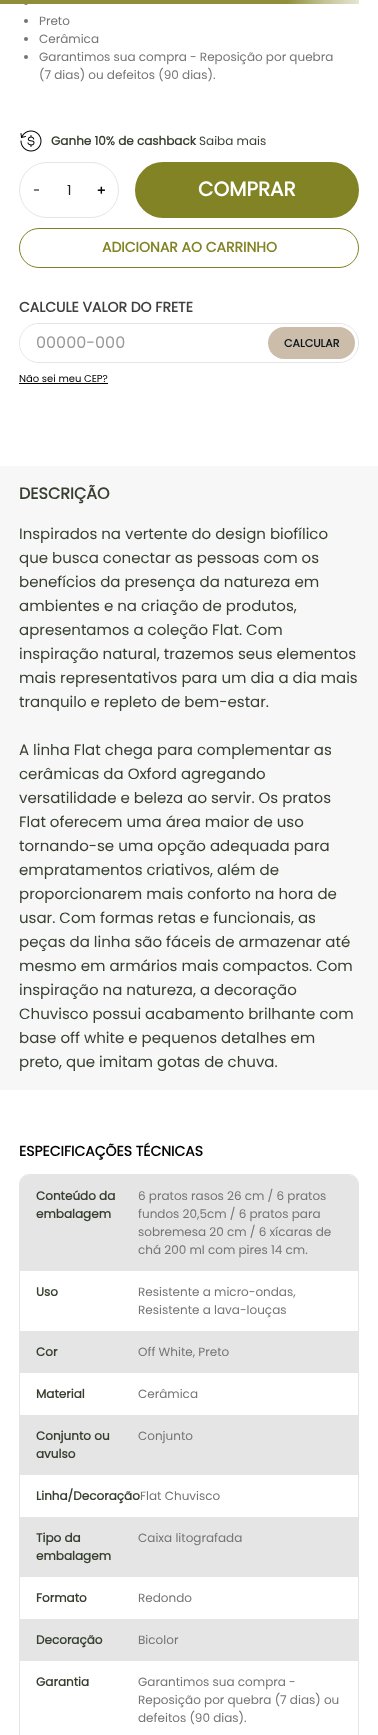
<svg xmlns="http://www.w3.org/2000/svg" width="378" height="1735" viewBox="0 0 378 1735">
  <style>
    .t1 { font: 12px Poppins; fill: #747474; }
    .t2 { font: bold 12px Poppins; fill: #374030; }
    .t3 { font: 12px Poppins; fill: #374030; }
    .t4 { font: 14px Poppins; fill: #1e1e1e; }
    .t5 { font: bold 20px Poppins; fill: #fff; }
    .t6 { font: bold 14px Poppins; fill: #828325; }
    .t7 { font: bold 14px Poppins; fill: #3f3f40; }
    .t8 { font: 16px Poppins; fill: #979899; }
    .t9 { font: bold 11px Poppins; fill: #08151d; }
    .t10 { font: 10px Poppins; fill: #000; }
    .t11 { font: bold 16px Poppins; fill: #374030; }
    .t12 { font: 15px Poppins; fill: #374030; }
    .t13 { font: bold 14px Poppins; fill: #000; }
  </style>
  <defs>
    <linearGradient id="g1" gradientUnits="userSpaceOnUse" x1="0" y1="2" x2="359" y2="2"><stop offset="0.8" stop-color="#8f8f3b"/><stop offset="0.9" stop-color="#c1c192"/><stop offset="1" stop-color="#e6e6d3"/></linearGradient>
  </defs>
  <rect width="100%" height="100%" fill="#fff"/>
  <circle cx="26" cy="3" r="2" fill="#747474"/>
  <rect x="0" y="0" width="359" height="4" fill="url(#g1)"/>
  <circle cx="26" cy="21" r="2" fill="#747474"/>
  <text x="39" y="25" class="t1">Preto</text>
  <circle cx="26" cy="39" r="2" fill="#747474"/>
  <text x="39" y="43" class="t1">Cerâmica</text>
  <circle cx="26" cy="57" r="2" fill="#747474"/>
  <text x="39" y="61" class="t1">Garantimos sua compra - Reposição por quebra</text>
  <text x="39" y="79" class="t1">(7 dias) ou defeitos (90 dias).</text>
  <image x="20" y="130" width="22" height="22" href="images/1.png"/>
  <text x="51" y="145" class="t2">Ganhe 10% de cashback</text>
  <text x="199" y="145" class="t3">Saiba mais</text>
  <rect x="19.5" y="162.5" width="99" height="55" rx="27.5" fill="none" stroke="#e5e5e5"/>
  <path d="M39 189.5V190.5H34V189.5Z" fill="#000"/>
  <text x="67" y="195" class="t4">1</text>
  <image x="97" y="186" width="8" height="8" href="images/2.png"/>
  <rect x="136" y="163" width="222" height="54" rx="27" fill="#828325" stroke="#828325" stroke-width="2"/>
  <text x="198" y="196" class="t5">COMPRAR</text>
  <rect x="19.5" y="228.5" width="339" height="39" rx="19.5" fill="none" stroke="#828325"/>
  <text x="102" y="252" class="t6">ADICIONAR AO CARRINHO</text>
  <text x="19" y="312" class="t7">CALCULE VALOR DO FRETE</text>
  <rect x="19.5" y="323.5" width="339" height="39" rx="19.5" fill="none" stroke="#e3e4e6"/>
  <rect x="20" y="324" width="338" height="38" rx="19" fill="#fff"/>
  <text x="36" y="348" class="t8">00000-000</text>
  <rect x="268" y="327" width="87" height="32" rx="16" fill="#ccbdaa"/>
  <text x="284" y="347" class="t9">CALCULAR</text>
  <text x="19" y="382" class="t10">Não sei meu CEP?</text>
  <rect x="19" y="383" width="89" height="1" fill="#000"/>
  <rect x="0" y="466" width="378" height="624" fill="#f7f7f7"/>
  <text x="19" y="499" class="t11">DESCRIÇÃO</text>
  <text x="19" y="539" class="t12">Inspirados na vertente do design biofílico</text>
  <text x="19" y="563" class="t12">que busca conectar as pessoas com os</text>
  <text x="19" y="587" class="t12">benefícios da presença da natureza em</text>
  <text x="19" y="611" class="t12">ambientes e na criação de produtos,</text>
  <text x="19" y="635" class="t12">apresentamos a coleção Flat. Com</text>
  <text x="19" y="659" class="t12">inspiração natural, trazemos seus elementos</text>
  <text x="19" y="683" class="t12">mais representativos para um dia a dia mais</text>
  <text x="19" y="707" class="t12">tranquilo e repleto de bem-estar.</text>
  <text x="19" y="755" class="t12">A linha Flat chega para complementar as</text>
  <text x="19" y="779" class="t12">cerâmicas da Oxford agregando</text>
  <text x="19" y="803" class="t12">versatilidade e beleza ao servir. Os pratos</text>
  <text x="19" y="827" class="t12">Flat oferecem uma área maior de uso</text>
  <text x="19" y="851" class="t12">tornando-se uma opção adequada para</text>
  <text x="19" y="875" class="t12">empratamentos criativos, além de</text>
  <text x="19" y="899" class="t12">proporcionarem mais conforto na hora de</text>
  <text x="19" y="923" class="t12">usar. Com formas retas e funcionais, as</text>
  <text x="19" y="947" class="t12">peças da linha são fáceis de armazenar até</text>
  <text x="19" y="971" class="t12">mesmo em armários mais compactos. Com</text>
  <text x="19" y="995" class="t12">inspiração na natureza, a decoração</text>
  <text x="19" y="1019" class="t12">Chuvisco possui acabamento brilhante com</text>
  <text x="19" y="1043" class="t12">base off white e pequenos detalhes em</text>
  <text x="19" y="1067" class="t12">preto, que imitam gotas de chuva.</text>
  <text x="19" y="1156" class="t13">ESPECIFICAÇÕES TÉCNICAS</text>
  <rect x="19.5" y="1174.5" width="339" height="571" rx="9.5" fill="none" stroke="#e5e5e5"/>
  <path d="M29 1175H349C354 1175 358 1179 358 1184V1271H20V1184C20 1179 24 1175 29 1175Z" fill="#e5e5e5"/>
  <text x="36" y="1200" class="t2">Conteúdo da</text>
  <text x="36" y="1218" class="t2">embalagem</text>
  <text x="138" y="1200" class="t1">6 pratos rasos 26 cm / 6 pratos</text>
  <text x="138" y="1218" class="t1">fundos 20,5cm / 6 pratos para</text>
  <text x="138" y="1236" class="t1">sobremesa 20 cm / 6 xícaras de</text>
  <text x="138" y="1254" class="t1">chá 200 ml com pires 14 cm.</text>
  <text x="36" y="1296" class="t2">Uso</text>
  <text x="138" y="1296" class="t1">Resistente a micro-ondas,</text>
  <text x="138" y="1314" class="t1">Resistente a lava-louças</text>
  <rect x="20" y="1331" width="338" height="42" fill="#e5e5e5"/>
  <text x="36" y="1356" class="t2">Cor</text>
  <text x="138" y="1356" class="t1">Off White, Preto</text>
  <text x="36" y="1398" class="t2">Material</text>
  <text x="138" y="1398" class="t1">Cerâmica</text>
  <rect x="20" y="1415" width="338" height="60" fill="#e5e5e5"/>
  <text x="36" y="1440" class="t2">Conjunto ou</text>
  <text x="36" y="1458" class="t2">avulso</text>
  <text x="138" y="1440" class="t1">Conjunto</text>
  <text x="36" y="1500" class="t2">Linha/Decoração</text>
  <text x="140" y="1500" class="t1">Flat Chuvisco</text>
  <rect x="20" y="1517" width="338" height="60" fill="#e5e5e5"/>
  <text x="36" y="1542" class="t2">Tipo da</text>
  <text x="36" y="1560" class="t2">embalagem</text>
  <text x="138" y="1542" class="t1">Caixa litografada</text>
  <text x="36" y="1602" class="t2">Formato</text>
  <text x="138" y="1602" class="t1">Redondo</text>
  <rect x="20" y="1619" width="338" height="42" fill="#e5e5e5"/>
  <text x="36" y="1644" class="t2">Decoração</text>
  <text x="138" y="1644" class="t1">Bicolor</text>
  <text x="36" y="1686" class="t2">Garantia</text>
  <text x="138" y="1686" class="t1">Garantimos sua compra -</text>
  <text x="138" y="1704" class="t1">Reposição por quebra (7 dias) ou</text>
  <text x="138" y="1722" class="t1">defeitos (90 dias).</text>
</svg>
